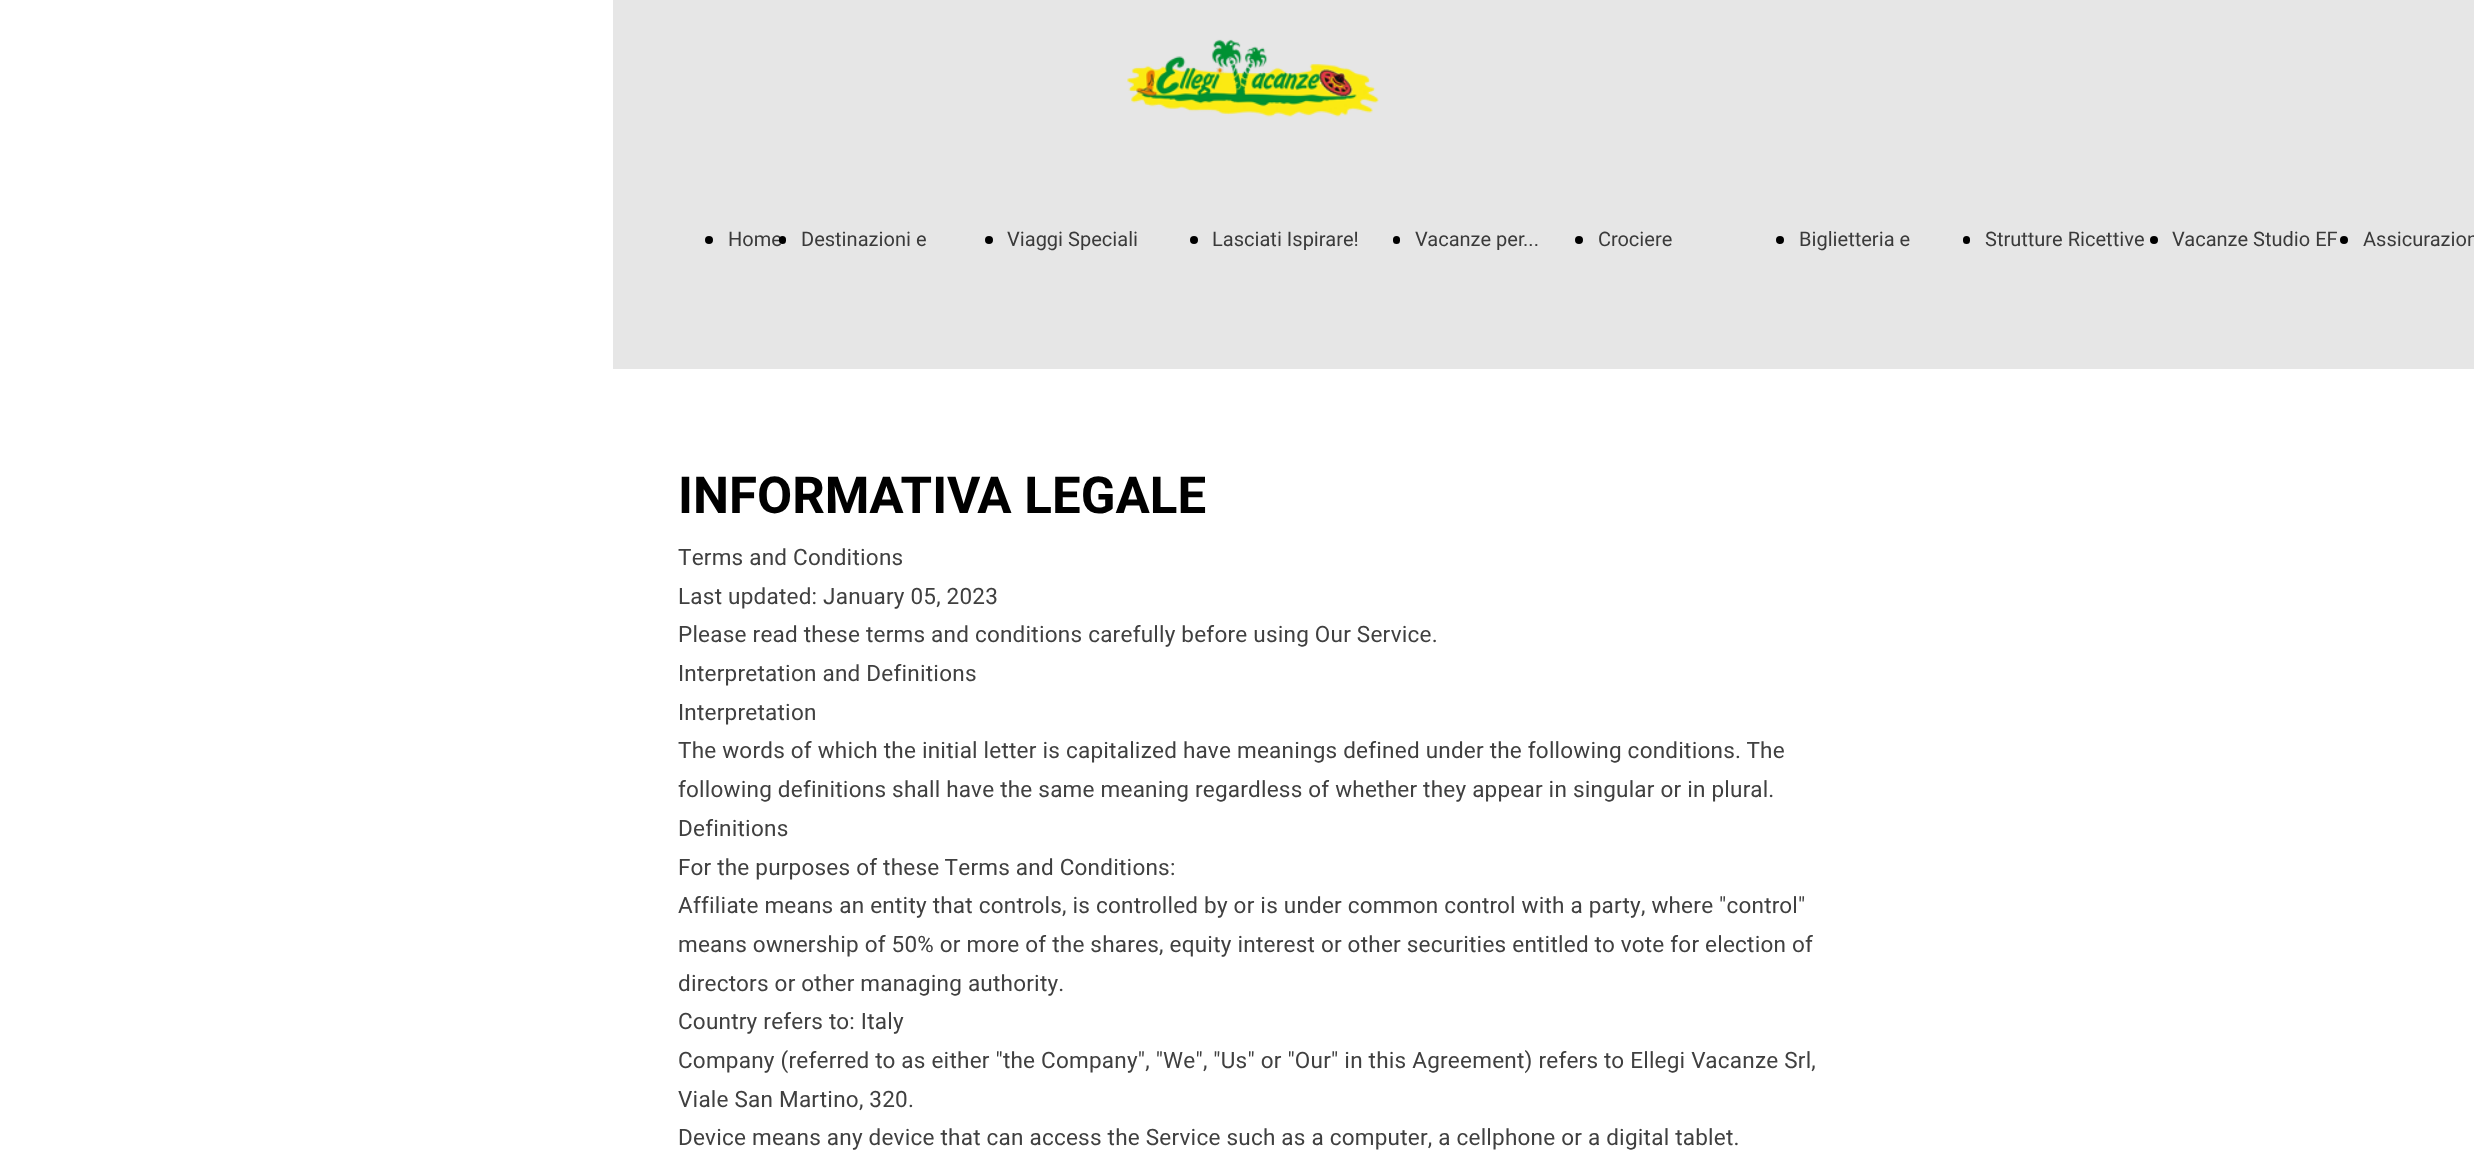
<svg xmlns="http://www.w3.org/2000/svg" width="2474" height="1175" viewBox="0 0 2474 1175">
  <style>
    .t1 { font: 20px Heebo; fill: #3a3a3a; }
    .t2 { font: bold 51px Heebo; fill: #000; }
    .t3 { font: 22.5px Heebo; letter-spacing: 0.22px; fill: #404040; }
  </style>
  <rect width="100%" height="100%" fill="#fff"/>
  <rect x="613" y="0" width="1861" height="369" fill="#e6e6e6"/>
  <image x="1127" y="39" width="252" height="78" href="images/1.png"/>
  <circle cx="709" cy="240" r="4" fill="#000"/>
  <text x="728" y="246" class="t1">Home</text>
  <rect x="779" y="236" width="7" height="8" rx="3.5" fill="#000"/>
  <text x="801" y="246" class="t1">Destinazioni e</text>
  <circle cx="989" cy="240" r="4" fill="#000"/>
  <text x="1007" y="246" class="t1">Viaggi Speciali</text>
  <circle cx="1194" cy="240" r="4" fill="#000"/>
  <text x="1212" y="246" class="t1">Lasciati Ispirare!</text>
  <rect x="1393" y="236" width="7" height="8" rx="3.5" fill="#000"/>
  <text x="1415" y="246" class="t1">Vacanze per...</text>
  <circle cx="1579" cy="240" r="4" fill="#000"/>
  <text x="1598" y="246" class="t1">Crociere</text>
  <circle cx="1780" cy="240" r="4" fill="#000"/>
  <text x="1799" y="246" class="t1">Biglietteria e</text>
  <rect x="1963" y="236" width="7" height="8" rx="3.5" fill="#000"/>
  <text x="1985" y="246" class="t1">Strutture Ricettive</text>
  <circle cx="2154" cy="240" r="4" fill="#000"/>
  <text x="2172" y="246" class="t1">Vacanze Studio EF</text>
  <circle cx="2344" cy="240" r="4" fill="#000"/>
  <text x="2363" y="246" class="t1">Assicurazion</text>
  <text x="678" y="513" class="t2">INFORMATIVA LEGALE</text>
  <text x="678" y="565" class="t3">Terms and Conditions</text>
  <text x="678" y="604" class="t3">Last updated: January 05, 2023</text>
  <text x="678" y="642" class="t3">Please read these terms and conditions carefully before using Our Service.</text>
  <text x="678" y="681" class="t3">Interpretation and Definitions</text>
  <text x="678" y="720" class="t3">Interpretation</text>
  <text x="678" y="758" class="t3">The words of which the initial letter is capitalized have meanings defined under the following conditions. The</text>
  <text x="678" y="797" class="t3">following definitions shall have the same meaning regardless of whether they appear in singular or in plural.</text>
  <text x="678" y="836" class="t3">Definitions</text>
  <text x="678" y="875" class="t3">For the purposes of these Terms and Conditions:</text>
  <text x="678" y="913" class="t3">Affiliate means an entity that controls, is controlled by or is under common control with a party, where "control"</text>
  <text x="678" y="952" class="t3">means ownership of 50% or more of the shares, equity interest or other securities entitled to vote for election of</text>
  <text x="678" y="991" class="t3">directors or other managing authority.</text>
  <text x="678" y="1029" class="t3">Country refers to: Italy</text>
  <text x="678" y="1068" class="t3">Company (referred to as either "the Company", "We", "Us" or "Our" in this Agreement) refers to Ellegi Vacanze Srl,</text>
  <text x="678" y="1107" class="t3">Viale San Martino, 320.</text>
  <text x="678" y="1145" class="t3">Device means any device that can access the Service such as a computer, a cellphone or a digital tablet.</text>
</svg>
